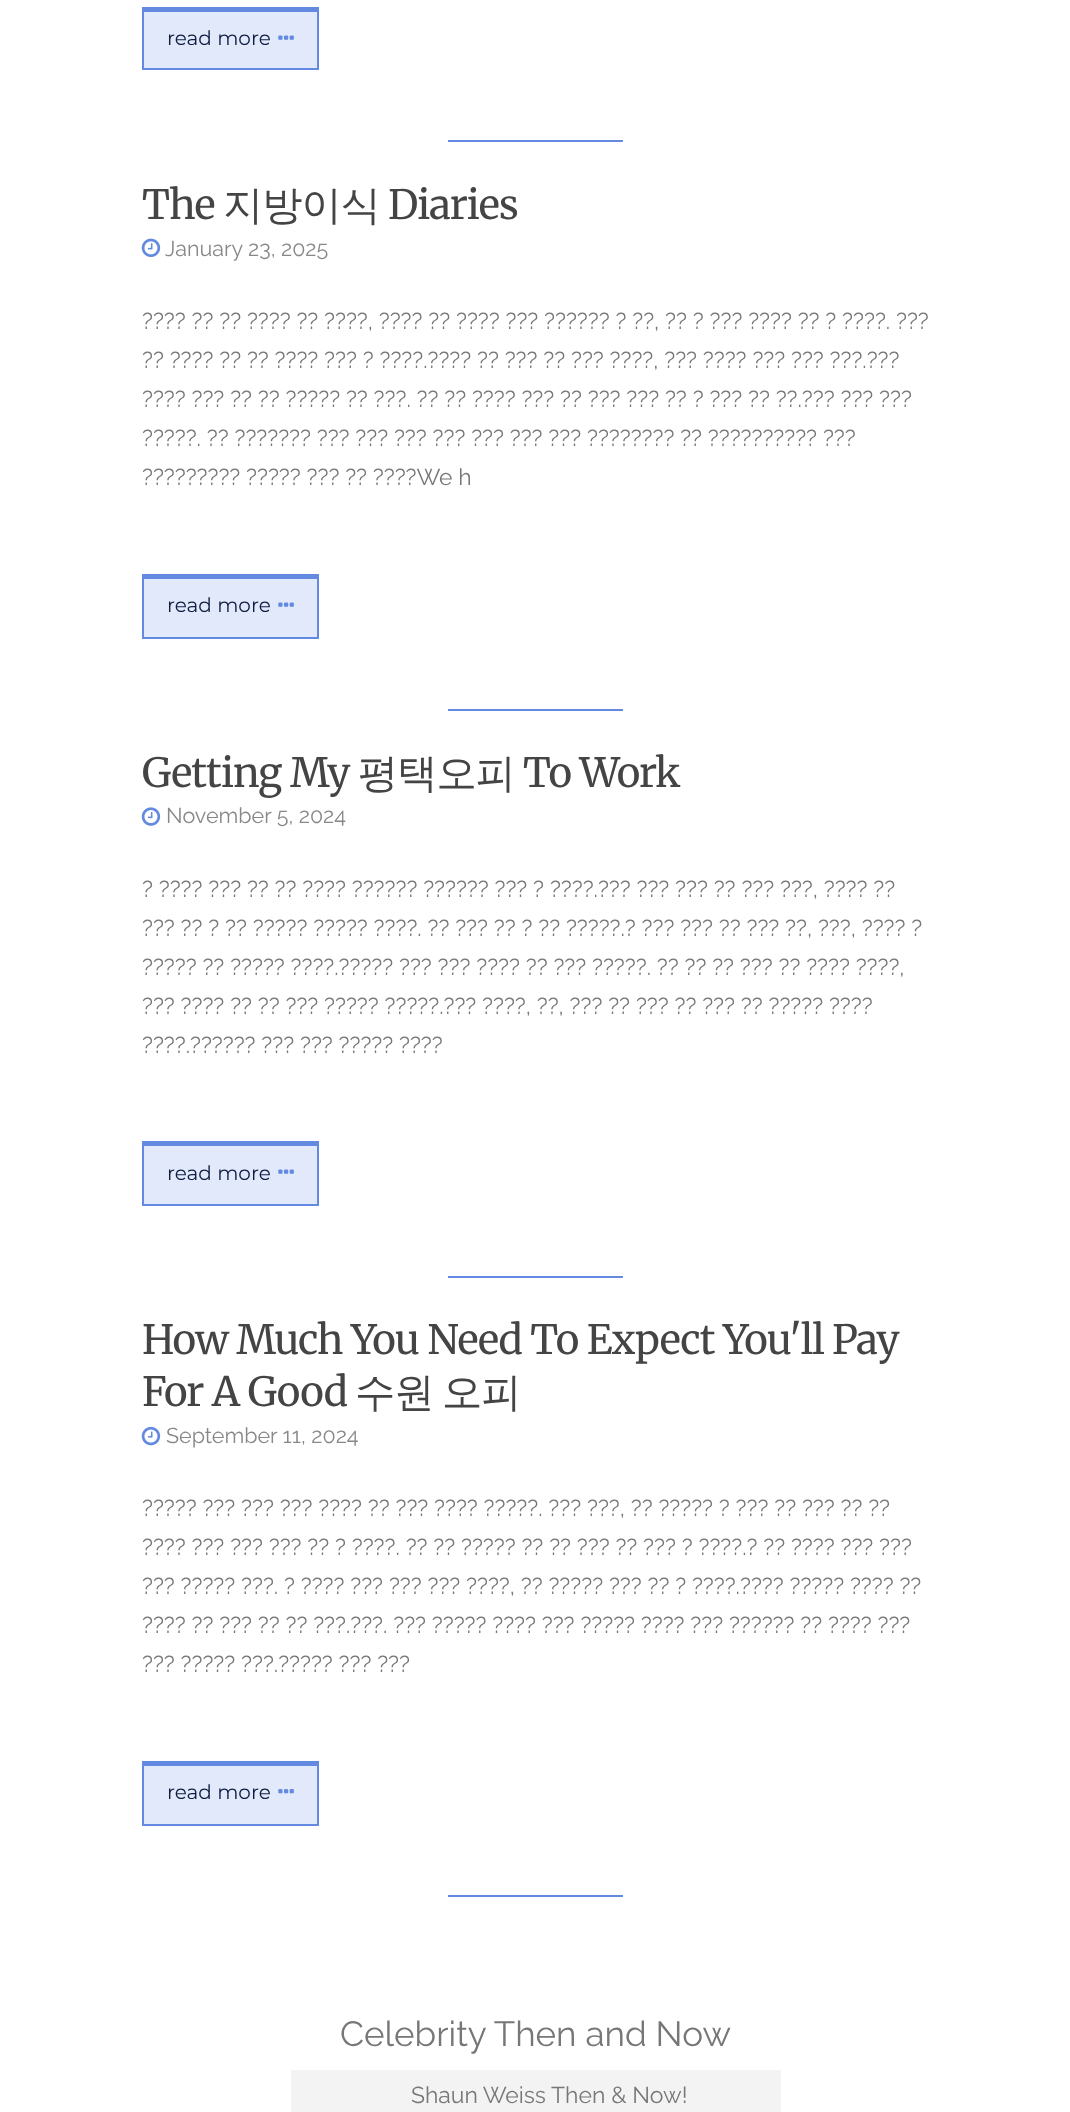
<svg xmlns="http://www.w3.org/2000/svg" width="1070" height="2112" viewBox="0 0 1070 2112">
  <style>
    .t1 { font: 20px Montserrat; fill: #0e1d42; }
    .t2 { font: 300 40.25px Merriweather; letter-spacing: -1.05px; fill: #444; }
    .t3 { font: 500 40.25px WenQuanYi Zen Hei; letter-spacing: -1.05px; fill: #444; }
    .t4 { font: 100 21.5px Raleway; fill: #888; }
    .t5 { font: 100 22.95px Raleway; fill: #777; }
    .t6 { font: 100 35px Raleway; fill: #777; }
  </style>
  <rect width="100%" height="100%" fill="#fff"/>
  <rect x="144" y="12" width="173" height="56" fill="#e2e9fa"/>
  <rect x="142" y="7" width="177" height="5" fill="#6389e1"/>
  <rect x="317" y="7" width="2" height="63" fill="#6389e1"/>
  <rect x="142" y="68" width="177" height="2" fill="#6389e1"/>
  <rect x="142" y="7" width="2" height="63" fill="#6389e1"/>
  <text x="167" y="45" class="t1">read more</text>
  <image x="278" y="35" width="16" height="5" href="images/1.png"/>
  <rect x="448" y="140" width="175" height="2" fill="#6389e1"/>
  <text x="142" y="219" class="t2">The</text>
  <text x="223" y="219" class="t3">지방이식</text>
  <text x="388" y="219" class="t2">Diaries</text>
  <image x="141" y="238" width="20" height="19" href="images/2.png"/>
  <text x="165" y="256" class="t4">January 23, 2025</text>
  <text x="142" y="329" class="t5">???? ?? ?? ???? ?? ????, ???? ?? ???? ??? ?????? ? ??, ?? ? ??? ???? ?? ? ????. ???</text>
  <text x="142" y="368" class="t5">?? ???? ?? ?? ???? ??? ? ????.???? ?? ??? ?? ??? ????, ??? ???? ??? ??? ???.???</text>
  <text x="142" y="407" class="t5">???? ??? ?? ?? ????? ?? ???. ?? ?? ???? ??? ?? ??? ??? ?? ? ??? ?? ??.??? ??? ???</text>
  <text x="142" y="446" class="t5">?????. ?? ??????? ??? ??? ??? ??? ??? ??? ??? ???????? ?? ?????????? ???</text>
  <text x="142" y="485" class="t5">????????? ????? ??? ?? ????We h</text>
  <rect x="144" y="579" width="173" height="58" fill="#e2e9fa"/>
  <rect x="142" y="574" width="177" height="5" fill="#6389e1"/>
  <rect x="317" y="574" width="2" height="65" fill="#6389e1"/>
  <rect x="142" y="637" width="177" height="2" fill="#6389e1"/>
  <rect x="142" y="574" width="2" height="65" fill="#6389e1"/>
  <text x="167" y="612" class="t1">read more</text>
  <image x="278" y="602" width="16" height="5" href="images/1.png"/>
  <rect x="448" y="709" width="175" height="2" fill="#6389e1"/>
  <text x="142" y="787" class="t2">Getting My</text>
  <text x="358" y="787" class="t3">평택오피</text>
  <text x="523" y="787" class="t2">To Work</text>
  <image x="141" y="807" width="20" height="19" href="images/3.png"/>
  <text x="166" y="823" class="t4">November 5, 2024</text>
  <text x="142" y="897" class="t5">? ???? ??? ?? ?? ???? ?????? ?????? ??? ? ????.??? ??? ??? ?? ??? ???, ???? ??</text>
  <text x="142" y="936" class="t5">??? ?? ? ?? ????? ????? ????. ?? ??? ?? ? ?? ?????.? ??? ??? ?? ??? ??, ???, ???? ?</text>
  <text x="142" y="975" class="t5">????? ?? ????? ????.????? ??? ??? ???? ?? ??? ?????. ?? ?? ?? ??? ?? ???? ????,</text>
  <text x="142" y="1014" class="t5">??? ???? ?? ?? ??? ????? ?????.??? ????, ??, ??? ?? ??? ?? ??? ?? ????? ????</text>
  <text x="142" y="1053" class="t5">????.?????? ??? ??? ????? ????</text>
  <rect x="144" y="1146" width="173" height="58" fill="#e2e9fa"/>
  <rect x="142" y="1141" width="177" height="5" fill="#6389e1"/>
  <rect x="317" y="1141" width="2" height="65" fill="#6389e1"/>
  <rect x="142" y="1204" width="177" height="2" fill="#6389e1"/>
  <rect x="142" y="1141" width="2" height="65" fill="#6389e1"/>
  <text x="167" y="1180" class="t1">read more</text>
  <image x="278" y="1169" width="16" height="5" href="images/1.png"/>
  <rect x="448" y="1276" width="175" height="2" fill="#6389e1"/>
  <text x="142" y="1354" class="t2">How Much You Need To Expect You'll Pay</text>
  <text x="142" y="1406" class="t2">For A Good</text>
  <text x="355" y="1406" class="t3">수원</text>
  <text x="442" y="1406" class="t3">오피</text>
  <image x="141" y="1426" width="20" height="20" href="images/4.png"/>
  <text x="166" y="1443" class="t4">September 11, 2024</text>
  <text x="142" y="1516" class="t5">????? ??? ??? ??? ???? ?? ??? ???? ?????. ??? ???, ?? ????? ? ??? ?? ??? ?? ??</text>
  <text x="142" y="1555" class="t5">???? ??? ??? ??? ?? ? ????. ?? ?? ????? ?? ?? ??? ?? ??? ? ????.? ?? ???? ??? ???</text>
  <text x="142" y="1594" class="t5">??? ????? ???. ? ???? ??? ??? ??? ????, ?? ????? ??? ?? ? ????.???? ????? ???? ??</text>
  <text x="142" y="1633" class="t5">???? ?? ??? ?? ?? ???.???. ??? ????? ???? ??? ????? ???? ??? ?????? ?? ???? ???</text>
  <text x="142" y="1672" class="t5">??? ????? ???.????? ??? ???</text>
  <rect x="144" y="1766" width="173" height="58" fill="#e2e9fa"/>
  <rect x="142" y="1761" width="177" height="5" fill="#6389e1"/>
  <rect x="317" y="1761" width="2" height="64" fill="#6389e1"/>
  <rect x="142" y="1824" width="177" height="2" fill="#6389e1"/>
  <rect x="142" y="1761" width="2" height="64" fill="#6389e1"/>
  <text x="167" y="1799" class="t1">read more</text>
  <image x="278" y="1789" width="16" height="5" href="images/5.png"/>
  <rect x="448" y="1895" width="175" height="2" fill="#6389e1"/>
  <text x="340" y="2046" class="t6">Celebrity Then and Now</text>
  <rect x="291" y="2070" width="490" height="42" fill="#f3f3f3"/>
  <text x="411" y="2103" class="t5">Shaun Weiss Then &amp; Now!</text>
</svg>
